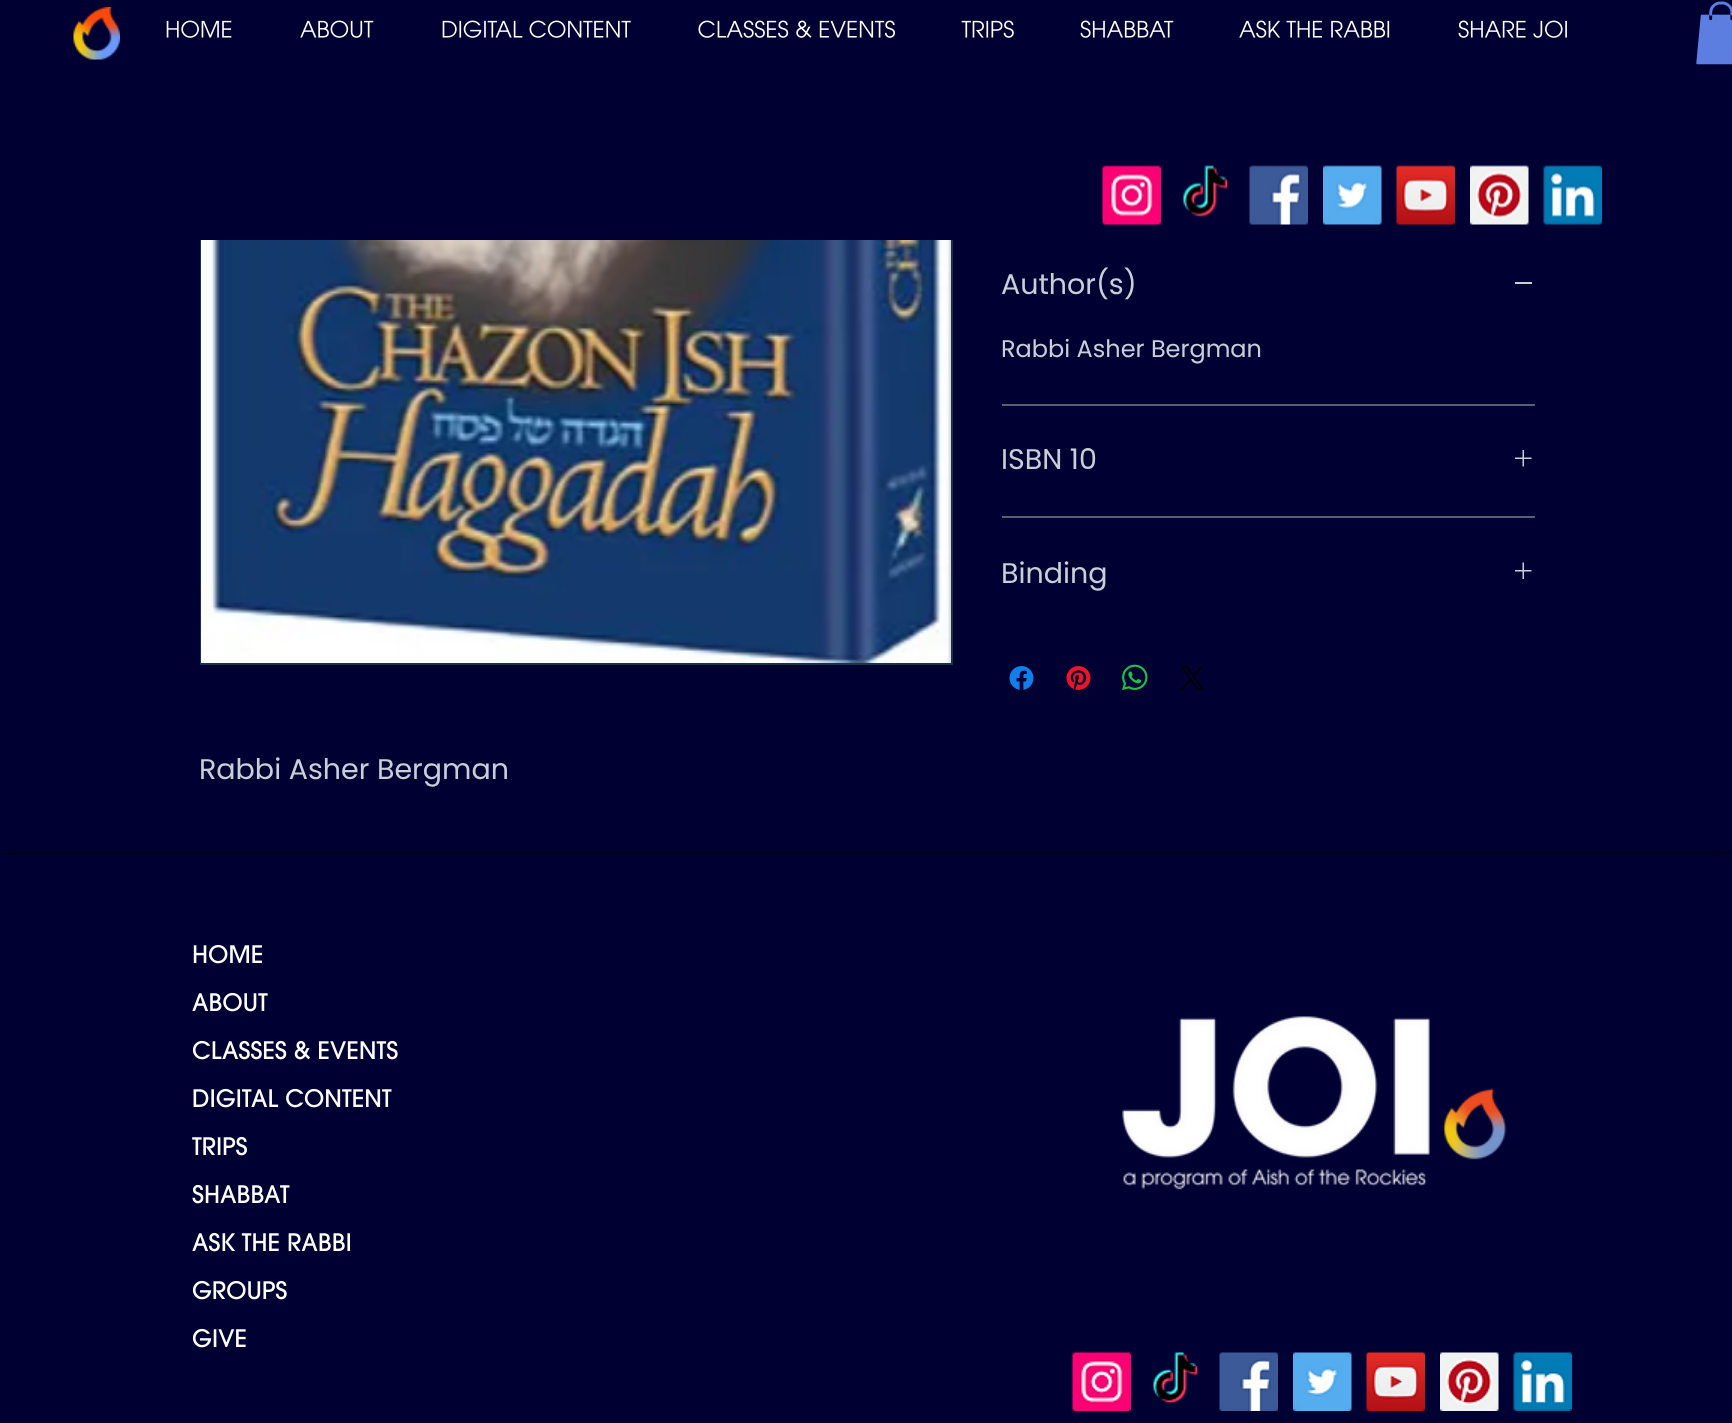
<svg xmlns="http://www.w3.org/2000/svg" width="1732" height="1423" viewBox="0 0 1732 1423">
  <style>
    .t1 { font: 28.5px Poppins; fill: #c5d0d9; }
    .t2 { font: 24px Poppins; fill: #c5d0d9; }
  </style>
  <defs>
    <clipPath id="clip1"><rect x="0" y="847" width="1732" height="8"/></clipPath>
  </defs>
  <rect width="100%" height="100%" fill="#003"/>
  <rect x="201" y="-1" width="751" height="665" fill="none" stroke="#1c3142" stroke-width="2"/>
  <rect x="200" y="0" width="753" height="240" fill="#003"/>
  <image x="73" y="7" width="47" height="53" href="images/1.png"/>
  <image x="166" y="20" width="66" height="18" href="images/2.png"/>
  <image x="300" y="20" width="74" height="18" href="images/3.png"/>
  <image x="442" y="20" width="189" height="18" href="images/4.png"/>
  <image x="698" y="20" width="197" height="18" href="images/5.png"/>
  <image x="961" y="20" width="53" height="18" href="images/6.png"/>
  <image x="1080" y="20" width="94" height="18" href="images/7.png"/>
  <image x="1239" y="20" width="151" height="18" href="images/8.png"/>
  <image x="1458" y="20" width="109" height="18" href="images/9.png"/>
  <image x="1696" y="1" width="36" height="64" href="images/10.png"/>
  <image x="1102" y="165" width="59" height="60" href="images/11.png"/>
  <image x="1182" y="165" width="47" height="53" href="images/12.png"/>
  <image x="1249" y="165" width="59" height="60" href="images/13.png"/>
  <image x="1323" y="165" width="59" height="60" href="images/14.png"/>
  <image x="1396" y="165" width="59" height="60" href="images/15.png"/>
  <image x="1470" y="165" width="59" height="60" href="images/16.png"/>
  <image x="1543" y="165" width="59" height="60" href="images/17.png"/>
  <rect x="1002" y="404" width="533" height="2" fill="#516371"/>
  <text x="1001" y="294" class="t1">Author(s)</text>
  <rect x="1515" y="282" width="17" height="2" fill="#c5d0d9"/>
  <text x="1001" y="357" class="t2">Rabbi Asher Bergman</text>
  <rect x="1002" y="516" width="533" height="2" fill="#516371"/>
  <text x="1001" y="469" class="t1">ISBN 10</text>
  <image x="1515" y="450" width="17" height="17" href="images/18.png"/>
  <text x="1001" y="583" class="t1">Binding</text>
  <image x="1515" y="562" width="17" height="17" href="images/19.png"/>
  <image x="1009" y="666" width="25" height="24" href="images/20.png"/>
  <image x="1066" y="666" width="25" height="24" href="images/21.png"/>
  <image x="1122" y="664" width="26" height="27" href="images/22.png"/>
  <image x="1180" y="666" width="24" height="24" href="images/23.png"/>
  <image x="201" y="240" width="750" height="423" href="images/24.png"/>
  <text x="199" y="779" class="t1">Rabbi Asher Bergman</text>
  <g clip-path="url(#clip1)">
    <rect x="0" y="855" width="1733" height="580" fill="#000000b3" filter="blur(4px)"/>
  </g>
  <image x="193" y="944" width="69" height="20" href="images/25.png"/>
  <image x="192" y="992" width="76" height="20" href="images/26.png"/>
  <image x="192" y="1040" width="206" height="20" href="images/27.png"/>
  <image x="193" y="1088" width="199" height="20" href="images/28.png"/>
  <image x="192" y="1136" width="55" height="20" href="images/29.png"/>
  <image x="192" y="1184" width="98" height="20" href="images/30.png"/>
  <image x="192" y="1232" width="158" height="20" href="images/31.png"/>
  <image x="192" y="1280" width="95" height="20" href="images/32.png"/>
  <image x="192" y="1328" width="54" height="20" href="images/33.png"/>
  <image x="1122" y="1016" width="385" height="174" href="images/34.png"/>
  <image x="1072" y="1352" width="59" height="59" href="images/35.png"/>
  <image x="1152" y="1352" width="47" height="52" href="images/36.png"/>
  <image x="1219" y="1352" width="59" height="59" href="images/37.png"/>
  <image x="1293" y="1352" width="59" height="59" href="images/38.png"/>
  <image x="1366" y="1352" width="59" height="59" href="images/39.png"/>
  <image x="1440" y="1352" width="59" height="59" href="images/40.png"/>
  <image x="1513" y="1352" width="59" height="59" href="images/41.png"/>
</svg>
